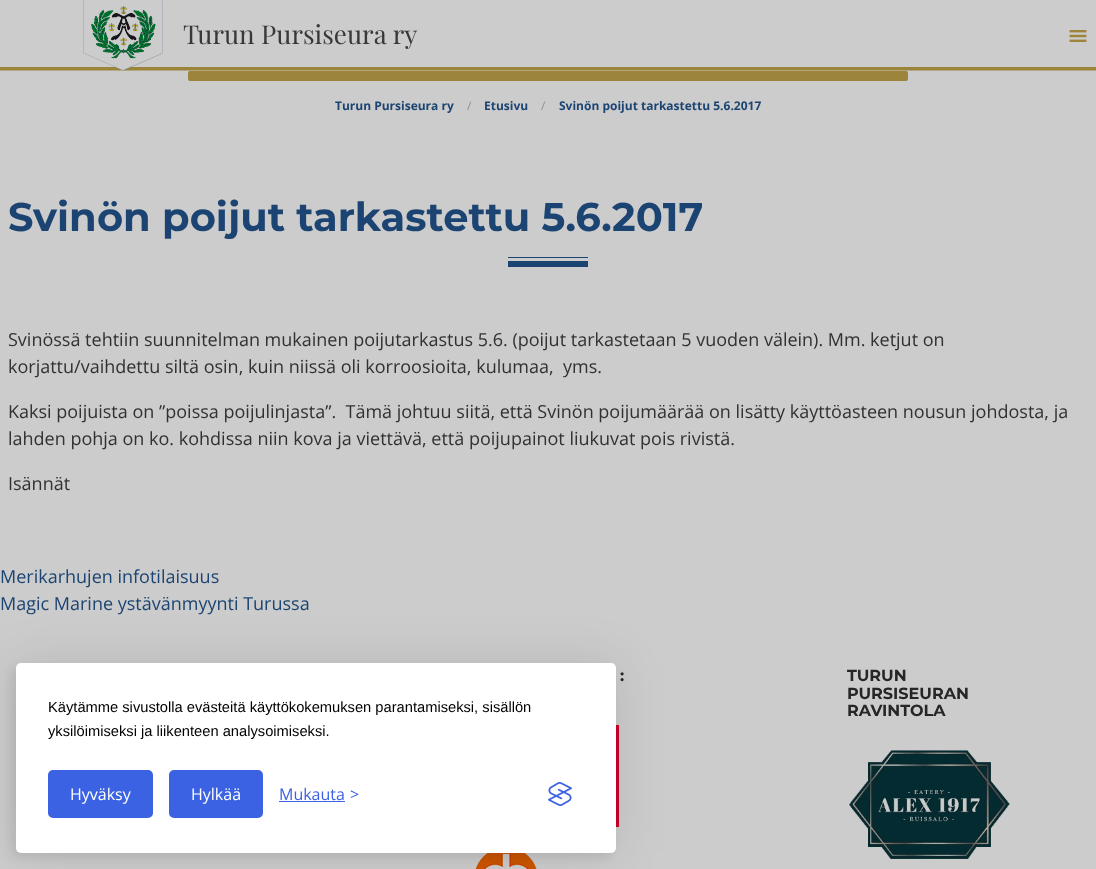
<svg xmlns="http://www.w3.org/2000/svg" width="1096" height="869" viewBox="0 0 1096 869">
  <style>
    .t1 { font: 26px Playfair Display; fill: #383838; }
    .t2 { font: bold 12px Open Sans; fill: #1c4472; }
    .t3 { font: 12px Open Sans; fill: #909090; }
    .t4 { font: bold 40px Montserrat; fill: #1c4472; }
    .t5 { font: 18px Open Sans; fill: #313131; }
    .t6 { font: 18px Open Sans; fill: #1c4472; }
    .t7 { font: bold 16px Montserrat; fill: #262626; }
    .t8 { font: 14.7px Liberation Sans; fill: #000; }
    .t9 { font: 16px Open Sans; fill: #fff; }
    .t10 { font: 16px Open Sans; fill: #3b62e2; }
  </style>
  <rect width="100%" height="100%" fill="#ccc"/>
  <rect x="0" y="70" width="1096" height="1" fill="#b4a883"/>
  <rect x="0" y="67" width="1096" height="3" fill="#9c843a"/>
  <image x="83" y="0" width="80" height="71" href="images/1.png"/>
  <text x="183" y="44" class="t1">Turun Pursiseura ry</text>
  <rect x="188" y="71" width="720" height="10" rx="2" fill="#9c843a"/>
  <image x="1069" y="30" width="18" height="12" href="images/2.png"/>
  <text x="335" y="110" class="t2">Turun Pursiseura ry</text>
  <text x="467" y="110" class="t3">/</text>
  <text x="484" y="110" class="t2">Etusivu</text>
  <text x="541" y="110" class="t3">/</text>
  <text x="559" y="110" class="t2">Svinön poijut tarkastettu 5.6.2017</text>
  <text x="8" y="231" class="t4">Svinön poijut tarkastettu 5.6.2017</text>
  <rect x="508" y="257" width="80" height="1" fill="#1c4472"/>
  <rect x="508" y="261" width="80" height="6" fill="#1c4472"/>
  <text x="8" y="346" class="t5">Svinössä tehtiin suunnitelman mukainen poijutarkastus 5.6. (poijut tarkastetaan 5 vuoden välein). Mm. ketjut on</text>
  <text x="8" y="373" class="t5" xml:space="preserve">korjattu/vaihdettu siltä osin, kuin niissä oli korroosioita, kulumaa,  yms.</text>
  <text x="8" y="418" class="t5" xml:space="preserve">Kaksi poijuista on ”poissa poijulinjasta”.  Tämä johtuu siitä, että Svinön poijumäärää on lisätty käyttöasteen nousun johdosta, ja</text>
  <text x="8" y="445" class="t5">lahden pohja on ko. kohdissa niin kova ja viettävä, että poijupainot liukuvat pois rivistä.</text>
  <text x="8" y="490" class="t5">Isännät</text>
  <text x="0" y="583" class="t6">Merikarhujen infotilaisuus</text>
  <text x="0" y="610" class="t6">Magic Marine ystävänmyynti Turussa</text>
  <text x="620" y="681" class="t7">:</text>
  <image x="616" y="725" width="3" height="102" href="images/3.png"/>
  <image x="475" y="853" width="62" height="16" href="images/4.png"/>
  <text x="847" y="681" class="t7">TURUN</text>
  <text x="847" y="699" class="t7">PURSISEURAN</text>
  <text x="847" y="716" class="t7">RAVINTOLA</text>
  <image x="849" y="750" width="161" height="109" href="images/5.png"/>
  <rect x="16" y="663" width="600" height="190" rx="5" fill="#0000001a" filter="blur(25px)"/>
  <rect x="11" y="668" width="600" height="190" rx="5" fill="#00000012" filter="blur(5px)"/>
  <rect x="16" y="663" width="600" height="190" rx="5" fill="#fff"/>
  <text x="48" y="712" class="t8">Käytämme sivustolla evästeitä käyttökokemuksen parantamiseksi, sisällön</text>
  <text x="48" y="736" class="t8">yksilöimiseksi ja liikenteen analysoimiseksi.</text>
  <rect x="49" y="771" width="103" height="46" rx="4" fill="#3b62e2" stroke="#3b62e2" stroke-width="2"/>
  <text x="70" y="800" class="t9">Hyväksy</text>
  <rect x="170" y="771" width="92" height="46" rx="4" fill="#3b62e2" stroke="#3b62e2" stroke-width="2"/>
  <text x="191" y="800" class="t9">Hylkää</text>
  <text x="279" y="800" class="t10">Mukauta</text>
  <rect x="279" y="801" width="66" height="1" fill="#3b62e2"/>
  <text x="350" y="800" class="t10">&gt;</text>
  <image x="548" y="782" width="24" height="24" href="images/6.png"/>
</svg>
